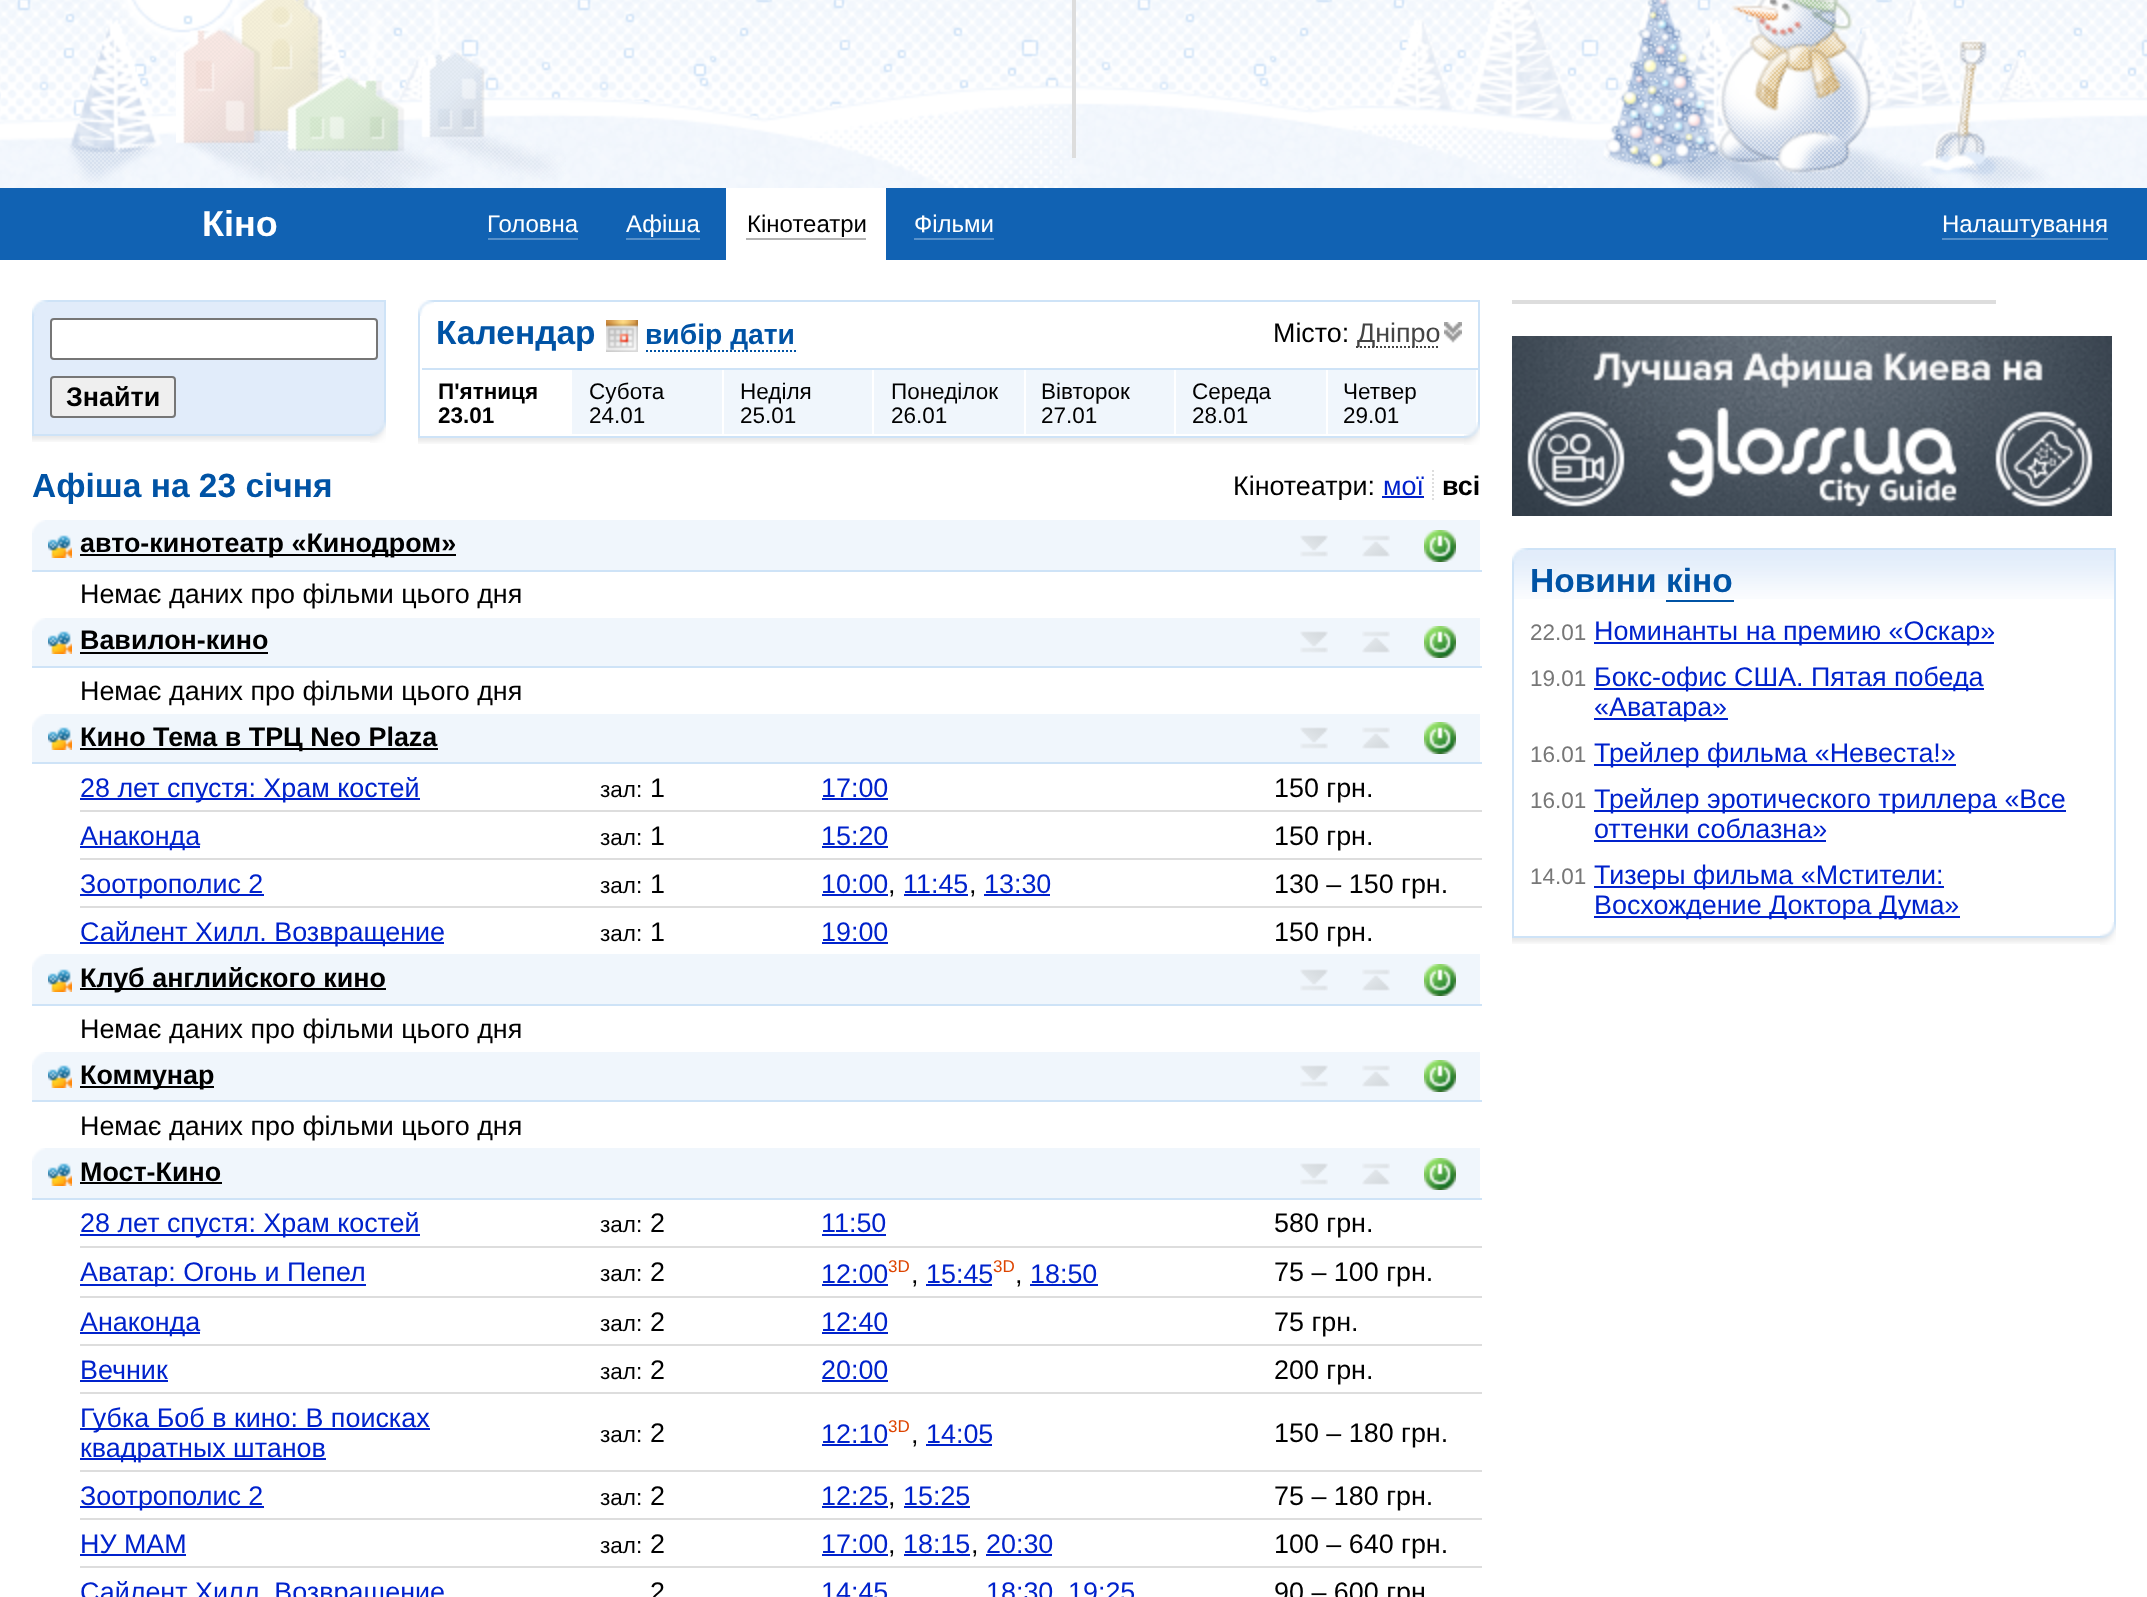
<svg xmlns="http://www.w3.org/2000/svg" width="2147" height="1597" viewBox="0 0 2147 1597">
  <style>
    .t1 { font: bold 36px Liberation Sans; fill: #fff; }
    .t2 { font: 24px Liberation Sans; fill: #fff; }
    .t3 { font: 24px Liberation Sans; fill: #000; }
    .t4 { font: bold 26.9px Liberation Sans; fill: #000; }
    .t5 { font: bold 33.5px Liberation Sans; fill: #0053a5; }
    .t6 { font: bold 28.25px Liberation Sans; fill: #0053a5; }
    .t7 { font: 26.9px Liberation Sans; fill: #000; }
    .t8 { font: 26.9px Liberation Sans; fill: #444; }
    .t9 { font: bold 22.5px Liberation Sans; fill: #000; }
    .t10 { font: 22.5px Liberation Sans; fill: #000; }
    .t11 { font: 26.9px Liberation Sans; fill: #02c; }
    .t12 { font: 17px Liberation Sans; fill: #d40; }
    .t13 { font: 22.5px Liberation Sans; fill: #777; }
  </style>
  <defs>
    <clipPath id="clip1"><rect x="1216" y="470" width="264" height="30"/></clipPath>
  </defs>
  <rect width="100%" height="100%" fill="#fff"/>
  <image x="0" y="0" width="2147" height="188" href="images/1.png"/>
  <rect x="1072" y="0" width="4" height="158" fill="#ddd"/>
  <rect x="0" y="188" width="2147" height="72" fill="#1162b3"/>
  <text x="202" y="236" class="t1">Кіно</text>
  <text x="487" y="232" class="t2">Головна</text>
  <rect x="488" y="238" width="90" height="2" fill="#5891ca"/>
  <text x="626" y="232" class="t2">Афіша</text>
  <rect x="626" y="238" width="74" height="2" fill="#5891ca"/>
  <rect x="726" y="188" width="160" height="72" fill="#fff"/>
  <text x="747" y="232" class="t3">Кінотеатри</text>
  <rect x="746" y="238" width="120" height="2" fill="#b3b3b3"/>
  <text x="914" y="232" class="t2">Фільми</text>
  <rect x="914" y="238" width="80" height="2" fill="#5891ca"/>
  <text x="1942" y="232" class="t2">Налаштування</text>
  <rect x="1942" y="238" width="166" height="2" fill="#5891ca"/>
  <image x="32" y="436" width="338" height="6" href="images/2.png"/>
  <rect x="33" y="301" width="352" height="134" fill="#e1ecfa" stroke="#cee3f7" stroke-width="2"/>
  <image x="32" y="300" width="16" height="16" href="images/3.png"/>
  <rect x="51" y="319" width="326" height="40" rx="3" fill="#fff" stroke="#767676" stroke-width="2"/>
  <rect x="51" y="377" width="124" height="40" rx="3" fill="#efefef" stroke="#767676" stroke-width="2"/>
  <text x="66" y="406" class="t4">Знайти</text>
  <image x="370" y="420" width="16" height="23" href="images/4.png"/>
  <image x="418" y="438" width="1046" height="6" href="images/5.png"/>
  <rect x="419" y="301" width="1060" height="136" fill="none" stroke="#cee3f7" stroke-width="2"/>
  <image x="418" y="300" width="16" height="16" href="images/6.png"/>
  <text x="436" y="344" class="t5">Календар</text>
  <image x="606" y="320" width="32" height="32" href="images/7.png"/>
  <path d="M646 351H796" fill="none" stroke="#0053a5" stroke-width="2" stroke-dasharray="2 2"/>
  <text x="645" y="344" class="t6">вибір дати</text>
  <text x="1273" y="342" class="t7">Місто:</text>
  <path d="M1356 347H1440" fill="none" stroke="#444" stroke-width="2" stroke-dasharray="2 2"/>
  <text x="1357" y="342" class="t8">Дніпро</text>
  <image x="1444" y="322" width="18" height="21" href="images/8.png"/>
  <rect x="422" y="368" width="1056" height="2" fill="#cee3f7"/>
  <text x="438" y="399" class="t9">П'ятниця</text>
  <text x="438" y="423" class="t9">23.01</text>
  <rect x="572" y="370" width="150" height="64" fill="#f0f6fc"/>
  <text x="589" y="399" class="t10">Субота</text>
  <text x="589" y="423" class="t10">24.01</text>
  <rect x="724" y="370" width="148" height="64" fill="#f0f6fc"/>
  <text x="740" y="399" class="t10">Неділя</text>
  <text x="740" y="423" class="t10">25.01</text>
  <rect x="874" y="370" width="150" height="64" fill="#f0f6fc"/>
  <text x="891" y="399" class="t10">Понеділок</text>
  <text x="891" y="423" class="t10">26.01</text>
  <rect x="1026" y="370" width="148" height="64" fill="#f0f6fc"/>
  <text x="1041" y="399" class="t10">Вівторок</text>
  <text x="1041" y="423" class="t10">27.01</text>
  <rect x="1176" y="370" width="150" height="64" fill="#f0f6fc"/>
  <text x="1192" y="399" class="t10">Середа</text>
  <text x="1192" y="423" class="t10">28.01</text>
  <rect x="1328" y="370" width="148" height="64" fill="#f0f6fc"/>
  <text x="1343" y="399" class="t10">Четвер</text>
  <text x="1343" y="423" class="t10">29.01</text>
  <image x="1464" y="422" width="16" height="23" href="images/9.png"/>
  <text x="32" y="497" class="t5">Афіша на 23 січня</text>
  <g clip-path="url(#clip1)">
    <text x="1233" y="495" class="t7">Кінотеатри:</text>
  </g>
  <path d="M1433 470V500" fill="none" stroke="#ddd" stroke-width="2" stroke-dasharray="2 2"/>
  <text x="1383" y="495" class="t11">мої</text>
  <rect x="1382" y="496" width="42" height="2" fill="#02c"/>
  <text x="1442" y="495" class="t4">всі</text>
  <rect x="32" y="520" width="1448" height="50" fill="#f0f6fc"/>
  <image x="32" y="520" width="13" height="13" href="images/10.png"/>
  <rect x="32" y="570" width="1450" height="2" fill="#cee3f7"/>
  <image x="48" y="535" width="24" height="23" href="images/11.png"/>
  <rect x="80" y="554" width="376" height="2" fill="#000"/>
  <text x="80" y="552" class="t4">авто-кинотеатр «Кинодром»</text>
  <image x="1300" y="535" width="28" height="22" href="images/12.png"/>
  <image x="1362" y="535" width="28" height="22" href="images/13.png"/>
  <image x="1424" y="530" width="32" height="32" href="images/14.png"/>
  <text x="80" y="603" class="t7">Немає даних про фільми цього дня</text>
  <rect x="32" y="618" width="1448" height="48" fill="#f0f6fc"/>
  <image x="32" y="618" width="13" height="13" href="images/10.png"/>
  <rect x="32" y="666" width="1450" height="2" fill="#cee3f7"/>
  <image x="48" y="631" width="24" height="23" href="images/11.png"/>
  <text x="80" y="649" class="t4">Вавилон-кино</text>
  <rect x="80" y="652" width="188" height="2" fill="#000"/>
  <image x="1300" y="631" width="28" height="22" href="images/12.png"/>
  <image x="1362" y="631" width="28" height="22" href="images/13.png"/>
  <image x="1424" y="626" width="32" height="32" href="images/14.png"/>
  <text x="80" y="700" class="t7">Немає даних про фільми цього дня</text>
  <rect x="32" y="714" width="1448" height="48" fill="#f0f6fc"/>
  <image x="32" y="714" width="13" height="13" href="images/10.png"/>
  <rect x="32" y="762" width="1450" height="2" fill="#cee3f7"/>
  <image x="48" y="727" width="24" height="23" href="images/11.png"/>
  <rect x="80" y="748" width="358" height="2" fill="#000"/>
  <text x="80" y="746" class="t4">Кино Тема в ТРЦ Neo Plaza</text>
  <image x="1300" y="727" width="28" height="22" href="images/12.png"/>
  <image x="1362" y="727" width="28" height="22" href="images/13.png"/>
  <image x="1424" y="722" width="32" height="32" href="images/14.png"/>
  <rect x="80" y="798" width="340" height="2" fill="#02c"/>
  <text x="80" y="797" class="t11">28 лет спустя: Храм костей</text>
  <text x="600" y="797" class="t10">зал:</text>
  <text x="650" y="797" class="t7">1</text>
  <text x="821" y="797" class="t11">17:00</text>
  <rect x="822" y="798" width="66" height="2" fill="#02c"/>
  <text x="1274" y="797" class="t7">150 грн.</text>
  <rect x="80" y="846" width="120" height="2" fill="#02c"/>
  <text x="80" y="845" class="t11">Анаконда</text>
  <text x="600" y="845" class="t10">зал:</text>
  <text x="650" y="845" class="t7">1</text>
  <text x="821" y="845" class="t11">15:20</text>
  <rect x="822" y="846" width="66" height="2" fill="#02c"/>
  <rect x="80" y="810" width="1402" height="2" fill="#ddd"/>
  <text x="1274" y="845" class="t7">150 грн.</text>
  <rect x="80" y="894" width="184" height="2" fill="#02c"/>
  <text x="80" y="893" class="t11">Зоотрополис 2</text>
  <text x="600" y="893" class="t10">зал:</text>
  <text x="650" y="893" class="t7">1</text>
  <text x="821" y="893" class="t11">10:00</text>
  <rect x="822" y="894" width="66" height="2" fill="#02c"/>
  <text x="888" y="893" class="t7">,</text>
  <text x="903" y="893" class="t11">11:45</text>
  <rect x="904" y="894" width="64" height="2" fill="#02c"/>
  <text x="969" y="893" class="t7">,</text>
  <text x="984" y="893" class="t11">13:30</text>
  <rect x="984" y="894" width="66" height="2" fill="#02c"/>
  <rect x="80" y="858" width="1402" height="2" fill="#ddd"/>
  <text x="1274" y="893" class="t7">130 – 150 грн.</text>
  <rect x="80" y="942" width="364" height="2" fill="#02c"/>
  <text x="80" y="941" class="t11">Сайлент Хилл. Возвращение</text>
  <text x="600" y="941" class="t10">зал:</text>
  <text x="650" y="941" class="t7">1</text>
  <text x="821" y="941" class="t11">19:00</text>
  <rect x="822" y="942" width="66" height="2" fill="#02c"/>
  <rect x="80" y="906" width="1402" height="2" fill="#ddd"/>
  <text x="1274" y="941" class="t7">150 грн.</text>
  <rect x="32" y="954" width="1448" height="50" fill="#f0f6fc"/>
  <image x="32" y="954" width="13" height="13" href="images/10.png"/>
  <rect x="32" y="1004" width="1450" height="2" fill="#cee3f7"/>
  <image x="48" y="969" width="24" height="23" href="images/11.png"/>
  <rect x="80" y="988" width="306" height="2" fill="#000"/>
  <text x="80" y="987" class="t4">Клуб английского кино</text>
  <image x="1300" y="969" width="28" height="22" href="images/12.png"/>
  <image x="1362" y="969" width="28" height="22" href="images/13.png"/>
  <image x="1424" y="964" width="32" height="32" href="images/14.png"/>
  <text x="80" y="1038" class="t7">Немає даних про фільми цього дня</text>
  <rect x="32" y="1052" width="1448" height="48" fill="#f0f6fc"/>
  <image x="32" y="1052" width="13" height="13" href="images/10.png"/>
  <rect x="32" y="1100" width="1450" height="2" fill="#cee3f7"/>
  <image x="48" y="1065" width="24" height="23" href="images/11.png"/>
  <rect x="80" y="1086" width="134" height="2" fill="#000"/>
  <text x="80" y="1084" class="t4">Коммунар</text>
  <image x="1300" y="1065" width="28" height="22" href="images/12.png"/>
  <image x="1362" y="1065" width="28" height="22" href="images/13.png"/>
  <image x="1424" y="1060" width="32" height="32" href="images/14.png"/>
  <text x="80" y="1135" class="t7">Немає даних про фільми цього дня</text>
  <rect x="32" y="1148" width="1448" height="50" fill="#f0f6fc"/>
  <image x="32" y="1148" width="13" height="13" href="images/10.png"/>
  <rect x="32" y="1198" width="1450" height="2" fill="#cee3f7"/>
  <image x="48" y="1163" width="24" height="23" href="images/11.png"/>
  <text x="80" y="1181" class="t4">Мост-Кино</text>
  <rect x="80" y="1182" width="142" height="2" fill="#000"/>
  <image x="1300" y="1163" width="28" height="22" href="images/12.png"/>
  <image x="1362" y="1163" width="28" height="22" href="images/13.png"/>
  <image x="1424" y="1158" width="32" height="32" href="images/14.png"/>
  <rect x="80" y="1234" width="340" height="2" fill="#02c"/>
  <text x="80" y="1232" class="t11">28 лет спустя: Храм костей</text>
  <text x="600" y="1232" class="t10">зал:</text>
  <text x="650" y="1232" class="t7">2</text>
  <text x="821" y="1232" class="t11">11:50</text>
  <rect x="822" y="1234" width="64" height="2" fill="#02c"/>
  <text x="1274" y="1232" class="t7">580 грн.</text>
  <rect x="80" y="1284" width="286" height="2" fill="#02c"/>
  <text x="80" y="1281" class="t11">Аватар: Огонь и Пепел</text>
  <text x="600" y="1281" class="t10">зал:</text>
  <text x="650" y="1281" class="t7">2</text>
  <text x="821" y="1283" class="t11">12:00</text>
  <rect x="822" y="1284" width="66" height="2" fill="#02c"/>
  <text x="888" y="1272" class="t12">3D</text>
  <text x="911" y="1283" class="t7">,</text>
  <text x="926" y="1283" class="t11">15:45</text>
  <rect x="926" y="1284" width="66" height="2" fill="#02c"/>
  <text x="993" y="1272" class="t12">3D</text>
  <text x="1015" y="1283" class="t7">,</text>
  <text x="1030" y="1283" class="t11">18:50</text>
  <rect x="1030" y="1284" width="68" height="2" fill="#02c"/>
  <rect x="80" y="1246" width="1402" height="2" fill="#ddd"/>
  <text x="1274" y="1281" class="t7">75 – 100 грн.</text>
  <rect x="80" y="1332" width="120" height="2" fill="#02c"/>
  <text x="80" y="1331" class="t11">Анаконда</text>
  <text x="600" y="1331" class="t10">зал:</text>
  <text x="650" y="1331" class="t7">2</text>
  <text x="821" y="1331" class="t11">12:40</text>
  <rect x="822" y="1332" width="66" height="2" fill="#02c"/>
  <rect x="80" y="1296" width="1402" height="2" fill="#ddd"/>
  <text x="1274" y="1331" class="t7">75 грн.</text>
  <text x="80" y="1379" class="t11">Вечник</text>
  <rect x="80" y="1380" width="88" height="2" fill="#02c"/>
  <text x="600" y="1379" class="t10">зал:</text>
  <text x="650" y="1379" class="t7">2</text>
  <text x="821" y="1379" class="t11">20:00</text>
  <rect x="822" y="1380" width="66" height="2" fill="#02c"/>
  <rect x="80" y="1344" width="1402" height="2" fill="#ddd"/>
  <text x="1274" y="1379" class="t7">200 грн.</text>
  <rect x="80" y="1428" width="350" height="2" fill="#02c"/>
  <text x="80" y="1427" class="t11">Губка Боб в кино: В поисках</text>
  <rect x="80" y="1458" width="246" height="2" fill="#02c"/>
  <text x="80" y="1457" class="t11">квадратных штанов</text>
  <text x="600" y="1442" class="t10">зал:</text>
  <text x="650" y="1442" class="t7">2</text>
  <text x="821" y="1443" class="t11">12:10</text>
  <rect x="822" y="1444" width="66" height="2" fill="#02c"/>
  <text x="888" y="1432" class="t12">3D</text>
  <text x="911" y="1443" class="t7">,</text>
  <text x="926" y="1443" class="t11">14:05</text>
  <rect x="926" y="1444" width="66" height="2" fill="#02c"/>
  <rect x="80" y="1392" width="1402" height="2" fill="#ddd"/>
  <text x="1274" y="1442" class="t7">150 – 180 грн.</text>
  <rect x="80" y="1506" width="184" height="2" fill="#02c"/>
  <text x="80" y="1505" class="t11">Зоотрополис 2</text>
  <text x="600" y="1505" class="t10">зал:</text>
  <text x="650" y="1505" class="t7">2</text>
  <text x="821" y="1505" class="t11">12:25</text>
  <rect x="822" y="1506" width="66" height="2" fill="#02c"/>
  <text x="888" y="1505" class="t7">,</text>
  <text x="903" y="1505" class="t11">15:25</text>
  <rect x="904" y="1506" width="66" height="2" fill="#02c"/>
  <rect x="80" y="1470" width="1402" height="2" fill="#ddd"/>
  <text x="1274" y="1505" class="t7">75 – 180 грн.</text>
  <text x="80" y="1553" class="t11">НУ МАМ</text>
  <rect x="80" y="1554" width="106" height="2" fill="#02c"/>
  <text x="600" y="1553" class="t10">зал:</text>
  <text x="650" y="1553" class="t7">2</text>
  <text x="821" y="1553" class="t11">17:00</text>
  <rect x="822" y="1554" width="66" height="2" fill="#02c"/>
  <text x="888" y="1553" class="t7">,</text>
  <text x="903" y="1553" class="t11">18:15</text>
  <rect x="904" y="1554" width="66" height="2" fill="#02c"/>
  <text x="971" y="1553" class="t7">,</text>
  <text x="986" y="1553" class="t11">20:30</text>
  <rect x="986" y="1554" width="66" height="2" fill="#02c"/>
  <rect x="80" y="1518" width="1402" height="2" fill="#ddd"/>
  <text x="1274" y="1553" class="t7">100 – 640 грн.</text>
  <text x="80" y="1601" class="t11">Сайлент Хилл. Возвращение</text>
  <text x="650" y="1601" class="t7">2</text>
  <text x="821" y="1601" class="t11">14:45</text>
  <text x="986" y="1601" class="t11">18:30</text>
  <text x="1068" y="1601" class="t11">19:25</text>
  <rect x="80" y="1566" width="1402" height="2" fill="#ddd"/>
  <text x="1274" y="1601" class="t7">90 – 600 грн</text>
  <rect x="1512" y="300" width="484" height="4" fill="#ddd"/>
  <image x="1512" y="336" width="600" height="180" href="images/15.png"/>
  <image x="1512" y="938" width="588" height="6" href="images/16.png"/>
  <image x="1514" y="550" width="600" height="49" href="images/18.png"/>
  <rect x="1513" y="549" width="602" height="388" fill="none" stroke="#cee3f7" stroke-width="2"/>
  <image x="1512" y="548" width="16" height="16" href="images/17.png"/>
  <text x="1530" y="592" class="t5">Новини кіно</text>
  <rect x="1666" y="600" width="68" height="2" fill="#0053a5"/>
  <text x="1530" y="640" class="t13">22.01</text>
  <rect x="1594" y="642" width="400" height="2" fill="#02c"/>
  <text x="1594" y="640" class="t11">Номинанты на премию «Оскар»</text>
  <text x="1530" y="686" class="t13">19.01</text>
  <rect x="1594" y="688" width="390" height="2" fill="#02c"/>
  <text x="1594" y="686" class="t11">Бокс-офис США. Пятая победа</text>
  <rect x="1594" y="718" width="134" height="2" fill="#02c"/>
  <text x="1594" y="716" class="t11">«Аватара»</text>
  <text x="1530" y="762" class="t13">16.01</text>
  <rect x="1594" y="764" width="362" height="2" fill="#02c"/>
  <text x="1594" y="762" class="t11">Трейлер фильма «Невеста!»</text>
  <text x="1530" y="808" class="t13">16.01</text>
  <rect x="1594" y="810" width="472" height="2" fill="#02c"/>
  <text x="1594" y="808" class="t11">Трейлер эротического триллера «Все</text>
  <text x="1594" y="838" class="t11">оттенки соблазна»</text>
  <rect x="1594" y="840" width="232" height="2" fill="#02c"/>
  <text x="1530" y="884" class="t13">14.01</text>
  <rect x="1594" y="886" width="350" height="2" fill="#02c"/>
  <text x="1594" y="884" class="t11">Тизеры фильма «Мстители:</text>
  <rect x="1594" y="916" width="366" height="2" fill="#02c"/>
  <text x="1594" y="914" class="t11">Восхождение Доктора Дума»</text>
  <image x="2100" y="922" width="16" height="23" href="images/19.png"/>
</svg>
